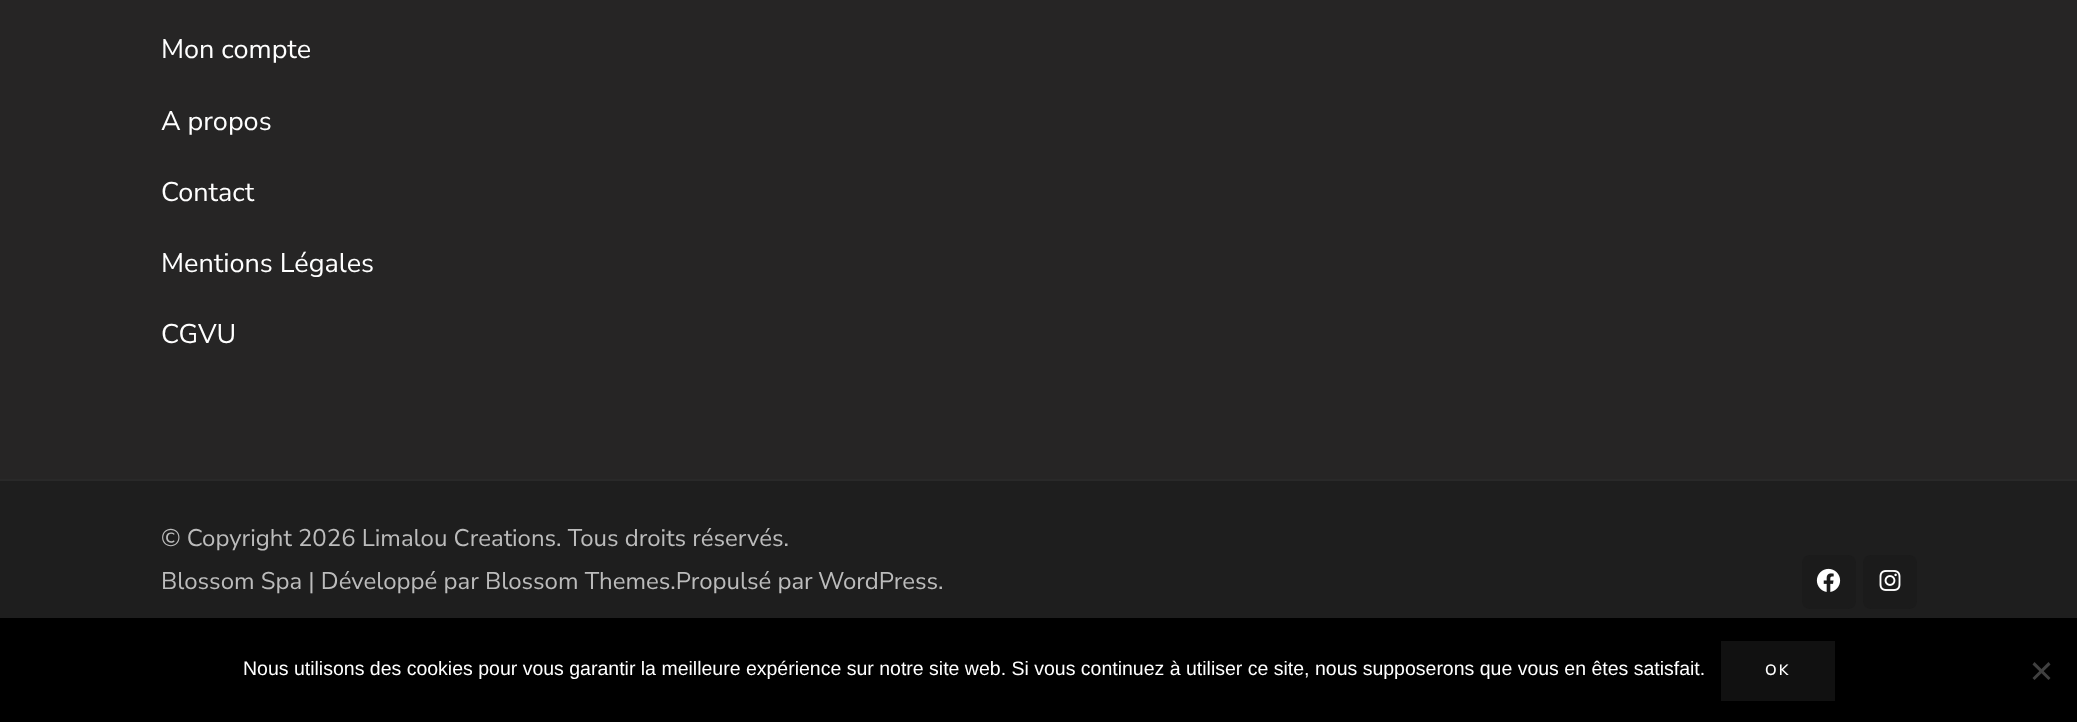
<svg xmlns="http://www.w3.org/2000/svg" width="2077" height="722" viewBox="0 0 2077 722">
  <style>
    .t1 { font: 27px Nunito Sans; fill: #fff; }
    .t2 { font: 24px Nunito Sans; fill: #bcbcbc; }
    .t3 { font: 19.5px Liberation Sans; fill: #fff; }
    .t4 { font: 600 15px Nunito Sans; letter-spacing: 2px; fill: #fff; }
  </style>
  <rect width="100%" height="100%" fill="#262525"/>
  <text x="161" y="58" class="t1">Mon compte</text>
  <text x="161" y="130" class="t1">A propos</text>
  <text x="161" y="201" class="t1">Contact</text>
  <text x="161" y="272" class="t1">Mentions Légales</text>
  <text x="161" y="343" class="t1">CGVU</text>
  <rect x="0" y="481" width="2077" height="137" fill="#1e1e1e"/>
  <rect x="0" y="479" width="2077" height="2" fill="#292929"/>
  <text x="161" y="546" class="t2">© Copyright 2026 Limalou Creations. Tous droits réservés.</text>
  <text x="161" y="589" class="t2">Blossom Spa | Développé par Blossom Themes.Propulsé par</text>
  <text x="818" y="589" class="t2">WordPress.</text>
  <rect x="1802" y="555" width="54" height="54" rx="8" fill="#1b1b1b"/>
  <image x="1816" y="568" width="25" height="24" href="images/1.png"/>
  <rect x="1863" y="555" width="54" height="54" rx="8" fill="#1b1b1b"/>
  <image x="1879" y="570" width="22" height="21" href="images/2.png"/>
  <rect x="0" y="618" width="2077" height="104" fill="#000"/>
  <text x="243" y="675" class="t3">Nous utilisons des cookies pour vous garantir la meilleure expérience sur notre site web. Si vous continuez à utiliser ce site, nous supposerons que vous en êtes satisfait.</text>
  <rect x="1721" y="641" width="114" height="60" fill="#111"/>
  <text x="1765" y="675" class="t4">OK</text>
  <path d="M2048.5 662L2050.5 664.5L2034.5 680L2032.5 678Z" fill="#404040"/>
  <path d="M2032.5 664.5L2034.5 662L2050.5 678L2048.5 680Z" fill="#404040"/>
</svg>
